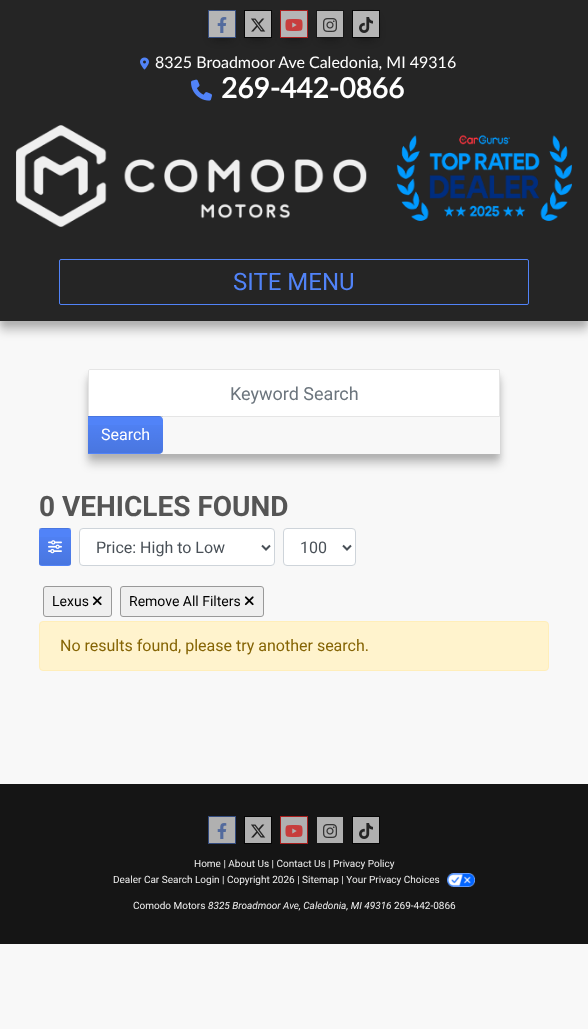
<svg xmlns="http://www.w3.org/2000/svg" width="588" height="1029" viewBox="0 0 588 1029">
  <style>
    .t1 { font: 16px Lato; fill: #fff; }
    .t2 { font: bold 28px Lato; fill: #fff; }
    .t3 { font: 24px Roboto; fill: #5183f8; }
    .t4 { font: 18px Roboto; fill: #6c757d; }
    .t5 { font: 16px Roboto; fill: #fff; }
    .t6 { font: bold 28px Roboto; fill: #555; }
    .t7 { font: 16px Roboto; fill: #495057; }
    .t8 { font: 14px Roboto; fill: #000; }
    .t9 { font: 16px Roboto; fill: #856404; }
    .t10 { font: 10px Roboto; fill: #eee; }
    .t11 { font: italic 10px Roboto; fill: #eee; }
  </style>
  <defs>
    <clipPath id="clip1"><path d="M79 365H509V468H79ZM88 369H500V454H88Z" clip-rule="evenodd"/></clipPath>
    <clipPath id="clip2"><path d="M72 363H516V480H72ZM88 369H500V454H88Z" clip-rule="evenodd"/></clipPath>
    <linearGradient id="g1" gradientUnits="userSpaceOnUse" x1="126" y1="381" x2="126" y2="417"><stop offset="0" stop-color="#000" stop-opacity="0"/><stop offset="1" stop-color="#000" stop-opacity="0.1"/></linearGradient>
    <linearGradient id="g2" gradientUnits="userSpaceOnUse" x1="126" y1="417" x2="126" y2="453"><stop offset="0" stop-color="#000" stop-opacity="0"/><stop offset="1" stop-color="#000" stop-opacity="0.1"/></linearGradient>
    <linearGradient id="g3" gradientUnits="userSpaceOnUse" x1="55" y1="493" x2="55" y2="529"><stop offset="0" stop-color="#000" stop-opacity="0"/><stop offset="1" stop-color="#000" stop-opacity="0.1"/></linearGradient>
    <linearGradient id="g4" gradientUnits="userSpaceOnUse" x1="55" y1="529" x2="55" y2="565"><stop offset="0" stop-color="#000" stop-opacity="0"/><stop offset="1" stop-color="#000" stop-opacity="0.1"/></linearGradient>
  </defs>
  <rect width="100%" height="100%" fill="#f8f8f8"/>
  <rect x="0" y="5" width="588" height="321" fill="#0000001a" filter="blur(2.5px)"/>
  <rect x="0" y="10" width="588" height="321" fill="#00000033" filter="blur(5px)"/>
  <rect x="0" y="0" width="588" height="321" fill="#252525"/>
  <rect x="213" y="20" width="18" height="18" fill="#07070799" filter="blur(5px)"/>
  <rect x="208.5" y="10.5" width="27" height="27" fill="#b5b5b5" stroke="#374f81"/>
  <image x="217" y="17" width="10" height="16" href="images/1.png"/>
  <rect x="249" y="20" width="18" height="18" fill="#07070799" filter="blur(5px)"/>
  <rect x="244.5" y="10.5" width="27" height="27" fill="#b5b5b5" stroke="#070707"/>
  <image x="251" y="18" width="15" height="14" href="images/2.png"/>
  <rect x="285" y="20" width="18" height="18" fill="#07070799" filter="blur(5px)"/>
  <rect x="280.5" y="10.5" width="27" height="27" fill="#b5b5b5" stroke="#ab2120"/>
  <image x="285" y="19" width="18" height="12" href="images/3.png"/>
  <rect x="321" y="20" width="18" height="18" fill="#07070799" filter="blur(5px)"/>
  <rect x="316.5" y="10.5" width="27" height="27" fill="#b5b5b5" stroke="#181818"/>
  <image x="323" y="18" width="14" height="14" href="images/4.png"/>
  <rect x="357" y="20" width="18" height="18" fill="#07070799" filter="blur(5px)"/>
  <rect x="352.5" y="10.5" width="27" height="27" fill="#b5b5b5" stroke="#080808"/>
  <image x="359" y="17" width="14" height="16" href="images/5.png"/>
  <image x="140" y="57" width="9" height="13" href="images/6.png"/>
  <text x="155" y="68" class="t1">8325 Broadmoor Ave Caledonia, MI 49316</text>
  <image x="191" y="79" width="21" height="22" href="images/7.png"/>
  <text x="221" y="98" class="t2">269-442-0866</text>
  <image x="16" y="125" width="556" height="102" href="images/8.png"/>
  <rect x="59.5" y="259.5" width="469" height="45" rx="1.5" fill="none" stroke="#5183f8"/>
  <text x="233" y="290" class="t3">SITE MENU</text>
  <g clip-path="url(#clip1)">
    <rect x="88" y="374" width="412" height="85" fill="#0000001a" filter="blur(2.5px)"/>
  </g>
  <g clip-path="url(#clip2)">
    <rect x="88" y="379" width="412" height="85" fill="#00000033" filter="blur(5px)"/>
  </g>
  <path d="M90 369.5H499.5V416.5H90C89 416.5 88.5 416 88.5 415V371C88.5 370 89 369.5 90 369.5Z" fill="#fff" stroke="#e5e5e5"/>
  <text x="230" y="400" class="t4">Keyword Search</text>
  <path d="M88 416H159C161 416 163 418 163 420V450C163 452 161 454 159 454H88Z" fill="#5183f8"/>
  <rect x="88" y="416" width="75" height="1" fill="url(#g1)"/>
  <rect x="88" y="425" width="75" height="28" fill="url(#g2)"/>
  <text x="101" y="440" class="t5">Search</text>
  <text x="39" y="516" class="t6">0 VEHICLES FOUND</text>
  <rect x="39" y="528" width="32" height="38" rx="3" fill="#5183f8"/>
  <rect x="39" y="528" width="32" height="1" fill="url(#g3)"/>
  <rect x="39" y="537" width="32" height="28" fill="url(#g4)"/>
  <image x="48" y="540" width="14" height="14" href="images/9.png"/>
  <rect x="79.5" y="528.5" width="195" height="37" rx="3.5" fill="#fff" stroke="#ced4da"/>
  <path d="M262 545.5L266 549.5L270 545.5" fill="none" stroke="#495057" stroke-width="2"/>
  <text x="96" y="553" class="t7">Price: High to Low</text>
  <rect x="283.5" y="528.5" width="72" height="37" rx="3.5" fill="#fff" stroke="#ced4da"/>
  <path d="M343 545.5L347 549.5L351 545.5" fill="none" stroke="#495057" stroke-width="2"/>
  <text x="300" y="553" class="t7">100</text>
  <rect x="43.5" y="586.5" width="68" height="30" rx="2.5" fill="#efefef" stroke="#999"/>
  <text x="52" y="606" class="t8">Lexus</text>
  <image x="92" y="596" width="10" height="10" href="images/10.png"/>
  <rect x="120.5" y="586.5" width="143" height="30" rx="2.5" fill="#efefef" stroke="#999"/>
  <text x="129" y="606" class="t8">Remove All Filters</text>
  <image x="244" y="596" width="10" height="10" href="images/10.png"/>
  <rect x="39.5" y="621.5" width="509" height="49" rx="3.5" fill="#fff3cd" stroke="#ffeeba"/>
  <text x="60" y="651" class="t9">No results found, please try another search.</text>
  <rect x="0" y="784" width="588" height="160" fill="#151515"/>
  <rect x="208.5" y="816.5" width="27" height="27" fill="#b0b0b0" stroke="#334b7e"/>
  <image x="217" y="823" width="10" height="16" href="images/11.png"/>
  <rect x="244.5" y="816.5" width="27" height="27" fill="#b0b0b0" stroke="#040404"/>
  <image x="251" y="824" width="15" height="14" href="images/12.png"/>
  <rect x="280.5" y="816.5" width="27" height="27" fill="#b0b0b0" stroke="#a81e1d"/>
  <image x="285" y="825" width="18" height="12" href="images/13.png"/>
  <rect x="317" y="817" width="26" height="26" fill="#b0b0b0"/>
  <image x="323" y="824" width="14" height="14" href="images/14.png"/>
  <rect x="352.5" y="816.5" width="27" height="27" fill="#b0b0b0" stroke="#050505"/>
  <image x="359" y="823" width="14" height="16" href="images/15.png"/>
  <text x="194" y="867" class="t10">Home | About Us | Contact Us | Privacy Policy</text>
  <text x="113" y="883" class="t10">Dealer Car Search Login | Copyright 2026 | Sitemap | Your Privacy Choices</text>
  <image x="447" y="873" width="28" height="14" href="images/16.png"/>
  <text x="133" y="909" class="t10">Comodo Motors</text>
  <text x="208" y="909" class="t11">8325 Broadmoor Ave, Caledonia, MI 49316</text>
  <text x="394" y="909" class="t10">269-442-0866</text>
</svg>
